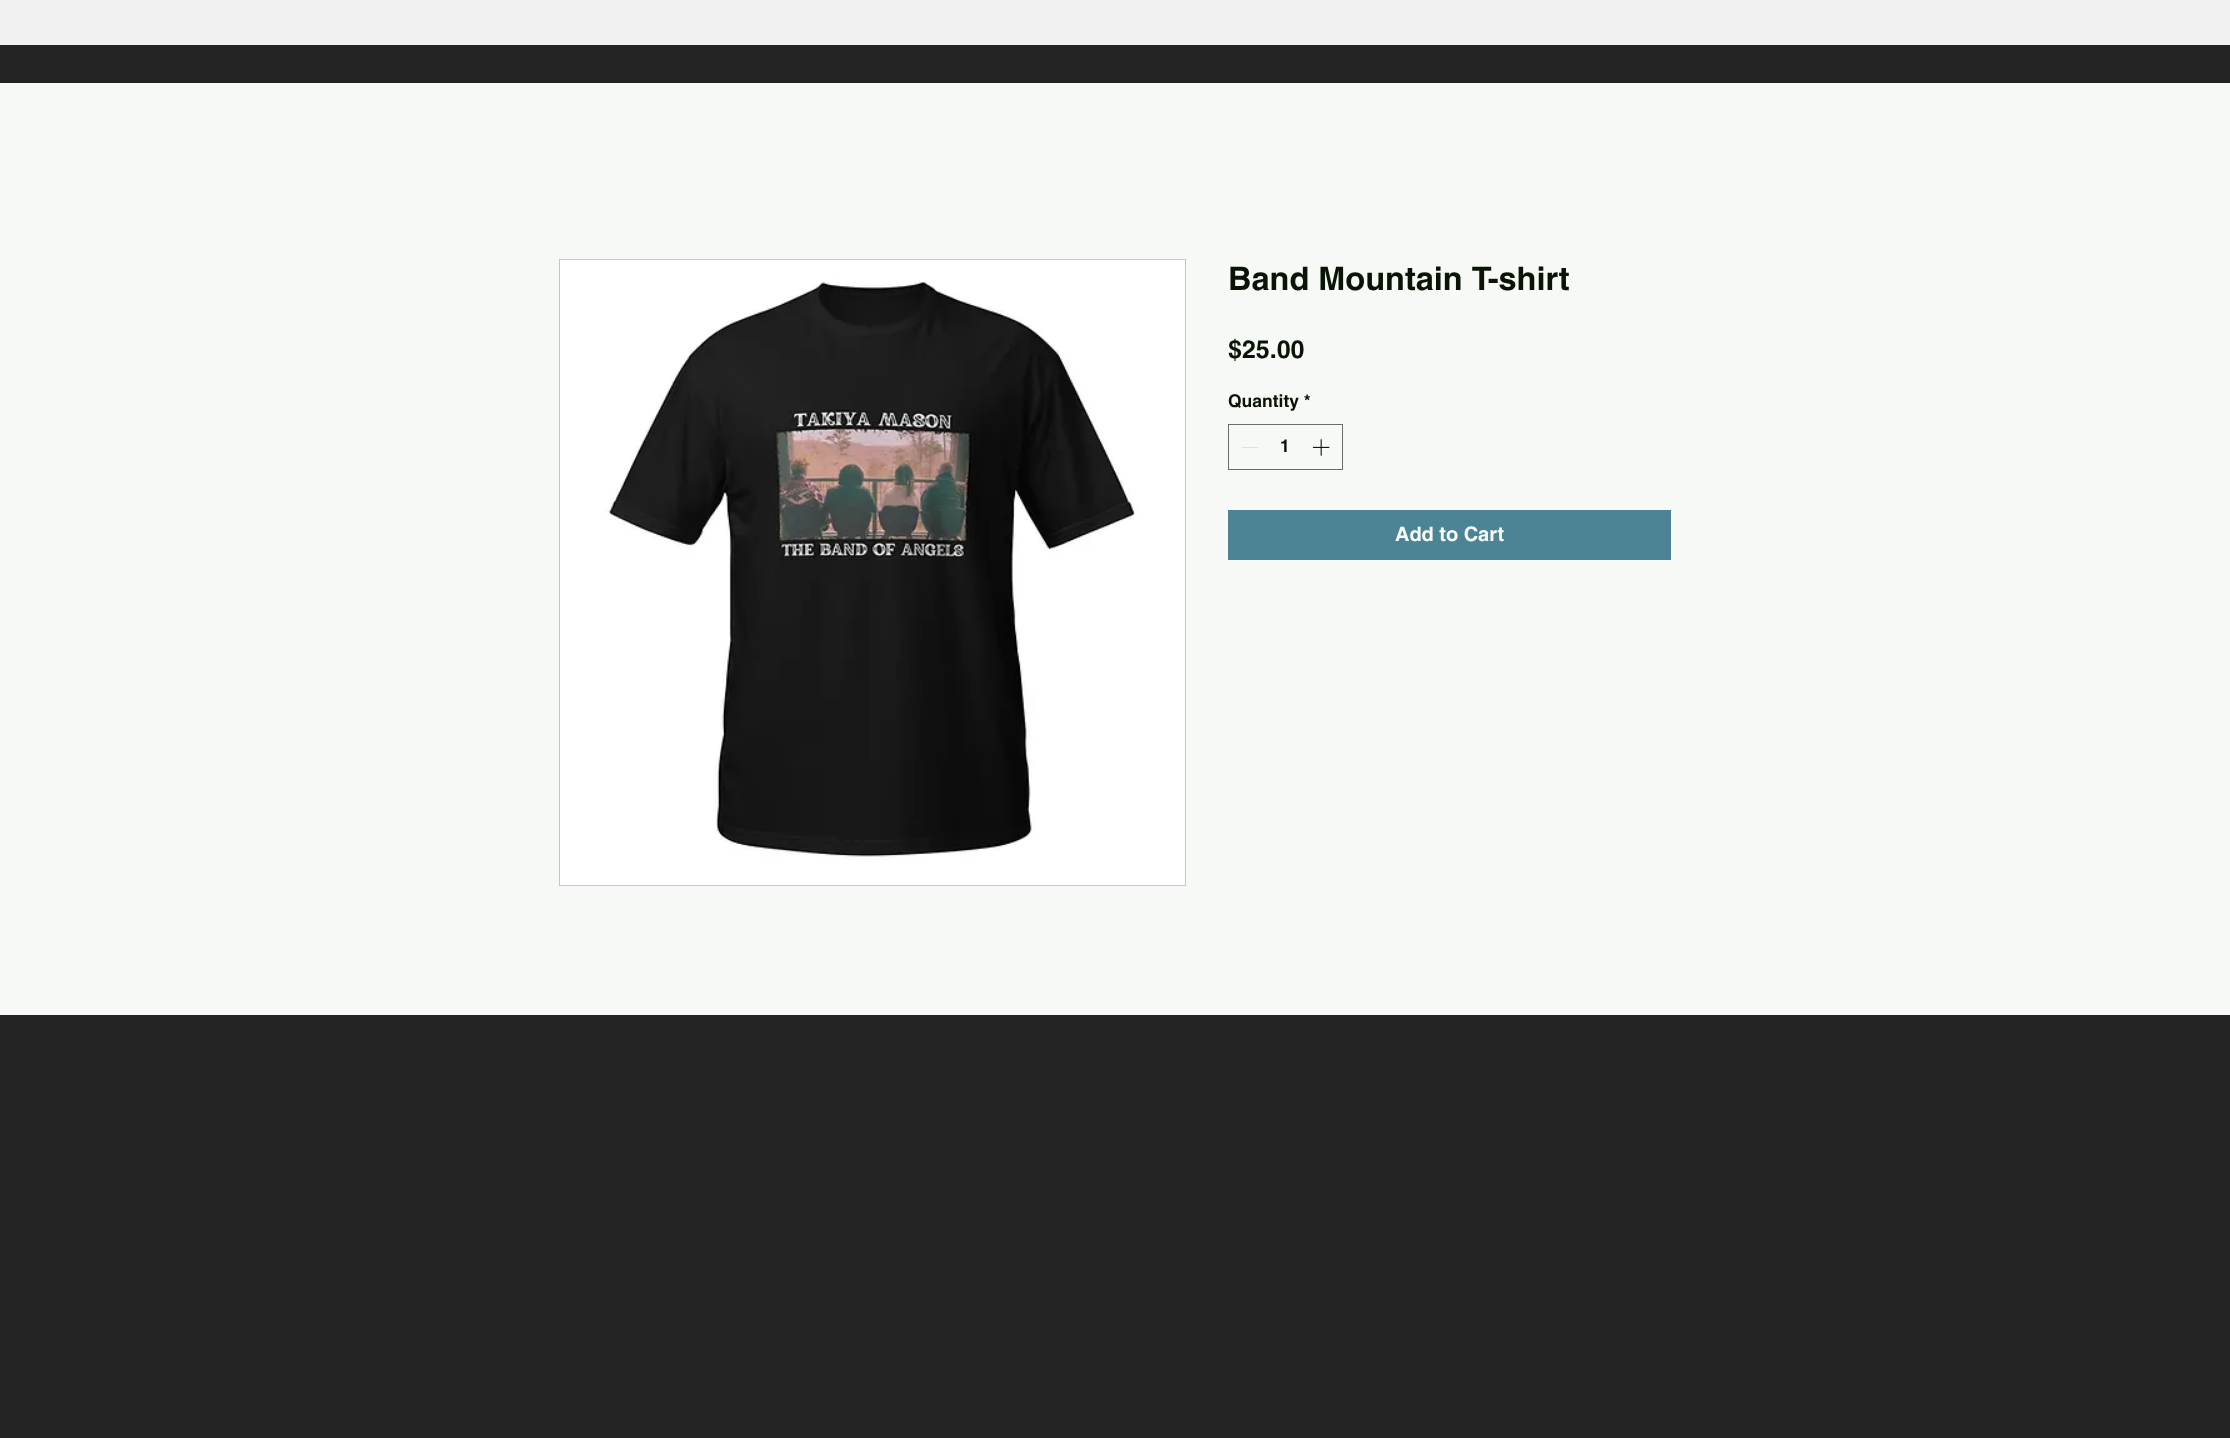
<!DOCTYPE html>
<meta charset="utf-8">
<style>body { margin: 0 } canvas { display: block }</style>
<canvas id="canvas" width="2230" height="1438"></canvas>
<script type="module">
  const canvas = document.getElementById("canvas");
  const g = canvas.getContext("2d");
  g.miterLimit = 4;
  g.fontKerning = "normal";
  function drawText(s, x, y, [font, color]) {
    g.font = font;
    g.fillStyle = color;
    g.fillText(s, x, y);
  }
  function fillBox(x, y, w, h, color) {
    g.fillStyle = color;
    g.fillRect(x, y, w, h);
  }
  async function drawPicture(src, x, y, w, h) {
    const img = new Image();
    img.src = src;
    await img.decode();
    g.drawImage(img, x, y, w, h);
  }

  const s1 = ["bold 32.5px helvetica", "#091405"];
  const s2 = ["bold 25px helvetica", "#091405"];
  const s3 = ["bold 17.5px helvetica", "#091405"];
  const s4 = ["bold 20px helvetica", "#F6F9F5"];

  fillBox(0, 0, 2230, 1438, "#232323");
  fillBox(0, 0, 2230, 45, "#F1F1F1");
  fillBox(0, 83, 2230, 932, "#F6F9F5");
  g.strokeStyle = "#C5C7C4";
  g.strokeRect(559.5, 259.5, 626, 626);
  await drawPicture("pic1.png", 560, 260, 625, 625);
  drawText("Band Mountain T-shirt", 1228, 290, s1);
  drawText("$25.00", 1228, 358, s2);
  drawText("Quantity *", 1228, 407, s3);
  g.strokeStyle = "#687065";
  g.strokeRect(1228.5, 424.5, 114, 45);
  fillBox(1242, 447, 16, 1, "#DFE0DE");
  drawText("1", 1280, 452, s3);
  await drawPicture("pic2.png", 1312, 439, 18, 17);
  fillBox(1228, 510, 443, 50, "#4D8495");
  drawText("Add to Cart", 1395, 541, s4);
</script>
